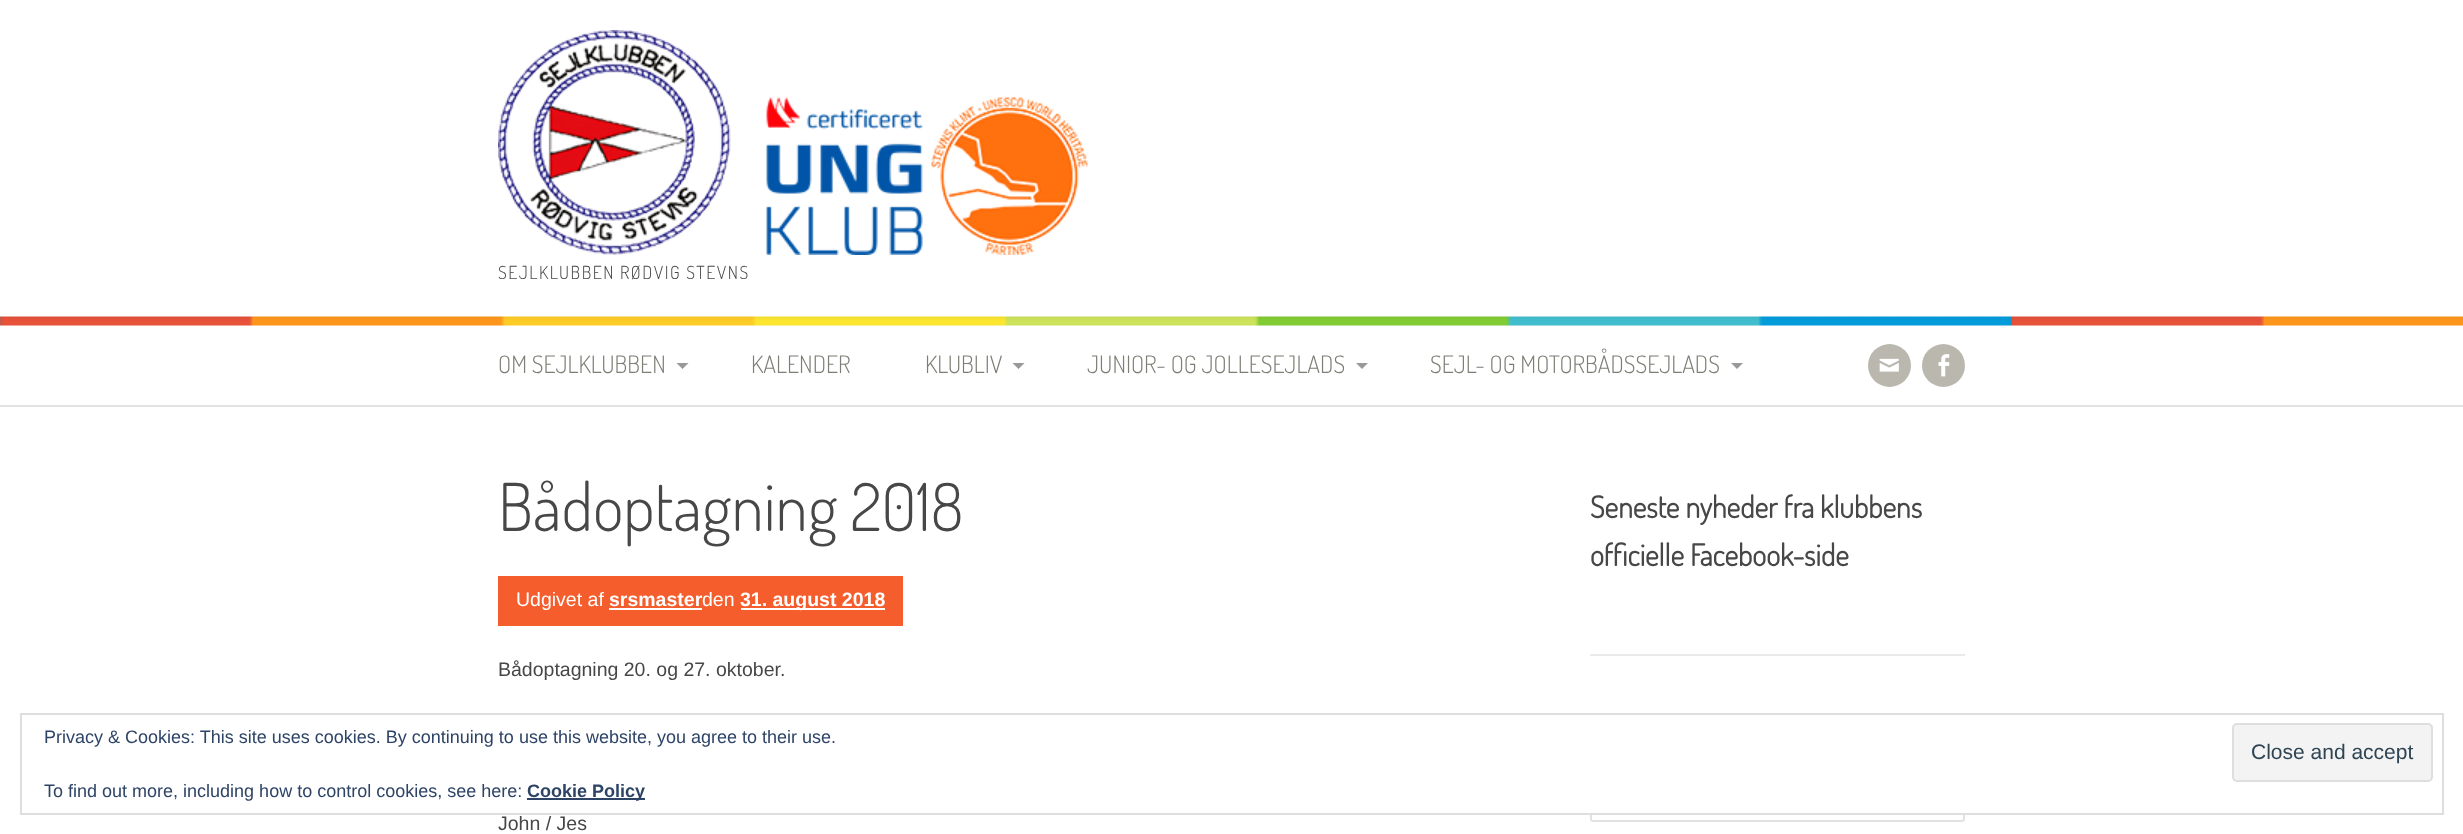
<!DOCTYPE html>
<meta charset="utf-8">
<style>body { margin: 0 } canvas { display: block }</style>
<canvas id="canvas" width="2463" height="834"></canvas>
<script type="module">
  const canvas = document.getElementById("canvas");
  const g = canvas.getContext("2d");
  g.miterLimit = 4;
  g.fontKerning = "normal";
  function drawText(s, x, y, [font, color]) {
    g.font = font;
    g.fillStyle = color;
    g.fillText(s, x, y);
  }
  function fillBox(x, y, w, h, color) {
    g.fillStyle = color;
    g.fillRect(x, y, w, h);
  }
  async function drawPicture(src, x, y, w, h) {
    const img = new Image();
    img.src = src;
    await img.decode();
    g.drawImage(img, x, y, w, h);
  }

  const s1 = ["300 18px Dosis", "#474747"];
  const s2 = ["300 24px Dosis", "#7E7E75"];
  const s3 = ["300 66px Dosis", "#474747"];
  const s4 = ["19.5px Liberation Sans", "#FFFFFF"];
  const s5 = ["bold 19.5px Liberation Sans", "#FFFFFF"];
  const s6 = ["19.5px Liberation Sans", "#474747"];
  const s7 = ["bold 30px Dosis", "#474747"];
  const s8 = ["18px Liberation Sans", "#2E4467"];
  const s9 = ["21px Liberation Sans", "#2E4453"];
  const s10 = ["bold 18px Liberation Sans", "#2E4467"];

  fillBox(0, 0, 2463, 834, "#FFFFFF");
  await drawPicture("pic1.png", 498, 30, 590, 225);
  g.letterSpacing = "1.5px";
  drawText("SEJLKLUBBEN RØDVIG STEVNS", 498, 279, s1);
  await drawPicture("pic2.png", 0, 316, 2463, 10);
  fillBox(0, 405, 2463, 2, "#E2E2E2");
  g.letterSpacing = "0px";
  drawText("OM SEJLKLUBBEN", 498, 373, s2);
  g.fillStyle = "#999999";
  g.beginPath();
  g.moveTo(676.5, 363);
  g.lineTo(688.5, 363);
  g.lineTo(682.5, 369);
  g.closePath();
  g.fill();
  drawText("KALENDER", 751, 373, s2);
  drawText("KLUBLIV", 925, 373, s2);
  g.fillStyle = "#999999";
  g.beginPath();
  g.moveTo(1012.5, 363);
  g.lineTo(1024.5, 363);
  g.lineTo(1018.5, 369);
  g.closePath();
  g.fill();
  drawText("JUNIOR- OG JOLLESEJLADS", 1087, 373, s2);
  g.fillStyle = "#999999";
  g.beginPath();
  g.moveTo(1356, 363);
  g.lineTo(1368, 363);
  g.lineTo(1362, 369);
  g.closePath();
  g.fill();
  drawText("SEJL- OG MOTORBÅDSSEJLADS", 1430, 373, s2);
  g.fillStyle = "#999999";
  g.beginPath();
  g.moveTo(1731, 363);
  g.lineTo(1743, 363);
  g.lineTo(1737, 369);
  g.closePath();
  g.fill();
  g.fillStyle = "#BAB8AE";
  g.beginPath();
  g.arc(1889.5, 365.5, 21.5, 0, Math.PI * 2);
  g.fill();
  await drawPicture("pic3.png", 1879, 358, 20, 14);
  g.beginPath();
  g.arc(1943.5, 365.5, 21.5, 0, Math.PI * 2);
  g.fill();
  await drawPicture("pic4.png", 1938, 354, 12, 23);
  drawText("Bådoptagning 2018", 498, 531, s3);
  fillBox(498, 576, 405, 50, "#F55D2D");
  drawText("Udgivet af", 516, 606, s4);
  drawText("srsmaster", 609, 606, s5);
  fillBox(609, 608, 93, 2, "#FFFFFF");
  drawText("den", 702, 606, s4);
  fillBox(741, 608, 144, 2, "#FFFFFF");
  drawText("31. august 2018", 740, 606, s5);
  drawText("Bådoptagning 20. og 27. oktober.", 498, 676, s6);
  drawText("John / Jes", 498, 830, s6);
  fillBox(1590, 654, 375, 2, "#EAEAEA");
  drawText("Seneste nyheder fra klubbens", 1590, 518, s7);
  drawText("officielle Facebook-side", 1590, 566, s7);
  g.beginPath();
  g.roundRect(1591, 765, 373, 56, 2);
  g.strokeStyle = "#E2E2E2";
  g.lineWidth = 2;
  g.stroke();
  fillBox(1590, 764, 375, 49, "#FFFFFF");
  g.strokeStyle = "#DEDEDE";
  g.strokeRect(21, 714, 2422, 100);
  drawText("Privacy & Cookies: This site uses cookies. By continuing to use this website, you agree to their use.", 44, 743, s8);
  g.fillStyle = "#F3F3F3";
  g.beginPath();
  g.roundRect(2233, 724, 199, 57, 4);
  g.fill();
  g.stroke();
  drawText("Close and accept", 2251, 759, s9);
  drawText("To find out more, including how to control cookies, see here:", 44, 797, s8);
  fillBox(527, 798, 118, 2, "#2E4467");
  drawText("Cookie Policy", 527, 797, s10);
</script>
